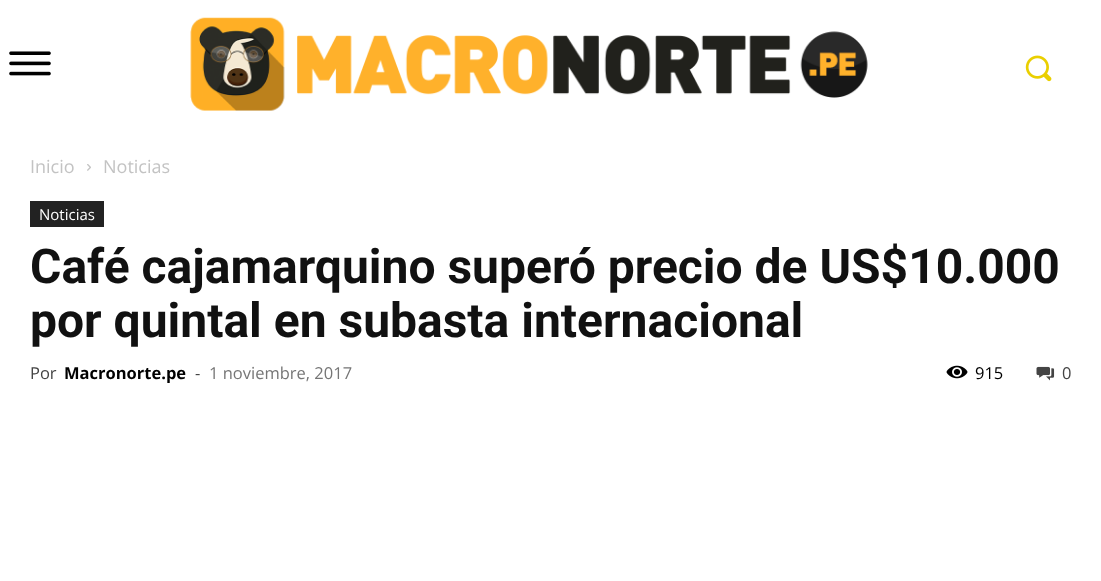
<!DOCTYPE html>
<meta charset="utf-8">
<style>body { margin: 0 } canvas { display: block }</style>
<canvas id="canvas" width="1101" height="581"></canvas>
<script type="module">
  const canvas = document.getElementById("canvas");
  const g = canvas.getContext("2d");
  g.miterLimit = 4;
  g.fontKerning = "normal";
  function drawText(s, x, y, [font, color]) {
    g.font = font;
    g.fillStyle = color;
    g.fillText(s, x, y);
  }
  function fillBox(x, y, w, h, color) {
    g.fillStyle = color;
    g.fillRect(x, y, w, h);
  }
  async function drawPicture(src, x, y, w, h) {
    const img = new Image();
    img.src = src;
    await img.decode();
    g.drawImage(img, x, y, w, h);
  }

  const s1 = ["18px Open Sans", "#C3C3C3"];
  const s2 = ["15px Open Sans", "#FFFFFF"];
  const s3 = ["bold 48px Roboto", "#111111"];
  const s4 = ["16.5px Open Sans", "#444444"];
  const s5 = ["bold 16.5px Open Sans", "#000000"];
  const s6 = ["16.5px Open Sans", "#767676"];
  const s7 = ["16.5px Open Sans", "#000000"];

  fillBox(0, 0, 1101, 581, "#FFFFFF");
  await drawPicture("pic1.png", 9, 51, 42, 25);
  await drawPicture("pic2.png", 190, 17, 678, 94);
  await drawPicture("pic3.png", 1025, 55, 27, 27);
  drawText("Inicio", 30, 173, s1);
  await drawPicture("pic4.png", 87, 164, 4, 7);
  drawText("Noticias", 103, 173, s1);
  fillBox(30, 201, 74, 26, "#222222");
  drawText("Noticias", 39, 220, s2);
  drawText("Café cajamarquino superó precio de US$10.000", 30, 283, s3);
  drawText("por quintal en subasta internacional", 30, 337, s3);
  drawText("Por", 30, 379, s4);
  drawText("Macronorte.pe", 64, 379, s5);
  drawText("-", 195, 379, s4);
  drawText("1 noviembre, 2017", 209, 379, s6);
  await drawPicture("pic5.png", 946, 365, 22, 14);
  drawText("915", 975, 379, s7);
  await drawPicture("pic6.png", 1036, 366, 19, 15);
  drawText("0", 1062, 379, s4);
</script>
